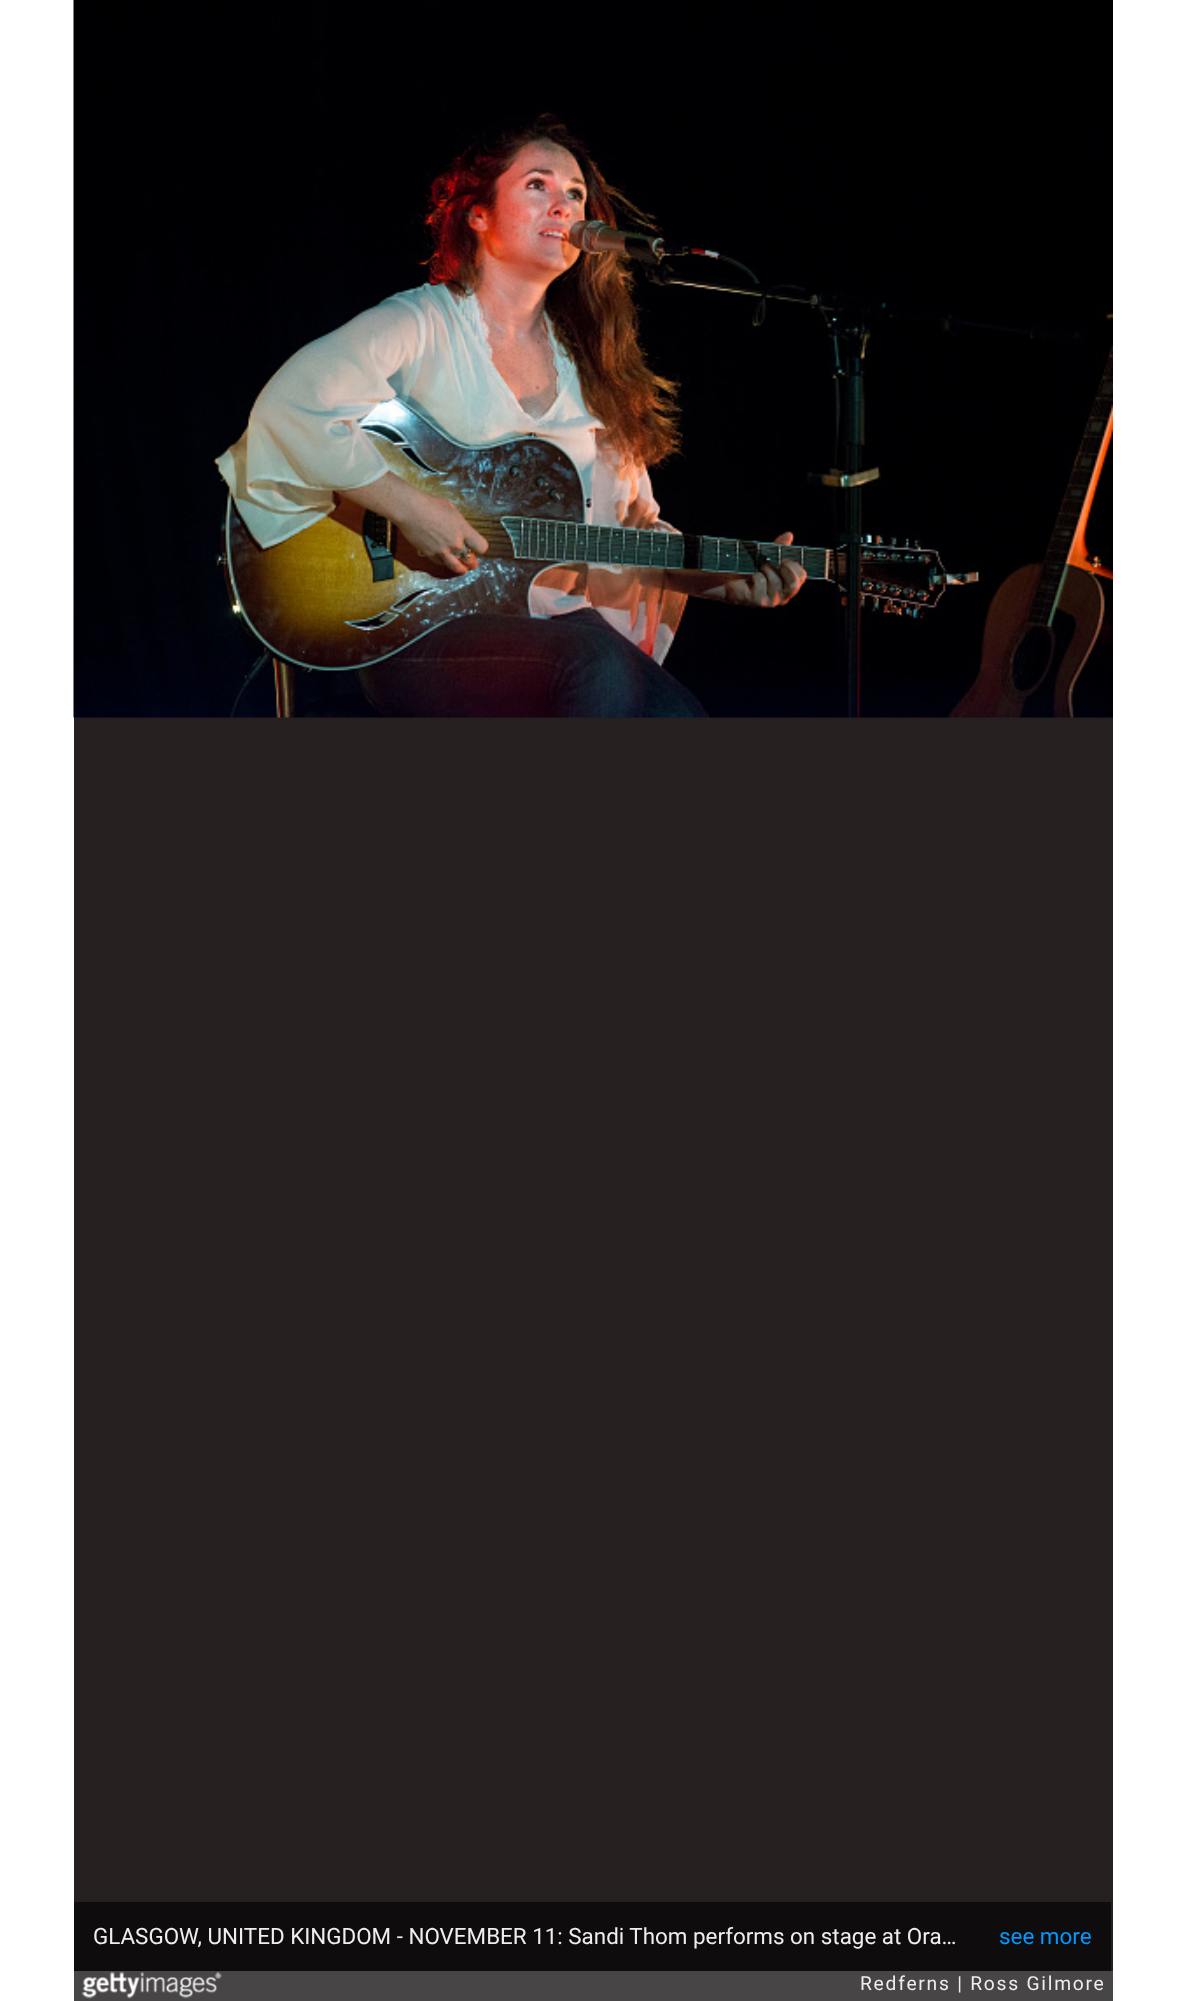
<!DOCTYPE html>
<meta charset="utf-8">
<style>body { margin: 0 } canvas { display: block }</style>
<canvas id="canvas" width="1184" height="2001"></canvas>
<script type="module">
  const canvas = document.getElementById("canvas");
  const g = canvas.getContext("2d");
  g.miterLimit = 4;
  g.fontKerning = "normal";
  function drawText(s, x, y, [font, color]) {
    g.font = font;
    g.fillStyle = color;
    g.fillText(s, x, y);
  }
  function fillBox(x, y, w, h, color) {
    g.fillStyle = color;
    g.fillRect(x, y, w, h);
  }
  async function drawPicture(src, x, y, w, h) {
    const img = new Image();
    img.src = src;
    await img.decode();
    g.drawImage(img, x, y, w, h);
  }

  const s1 = ["22.4px Roboto", "#EEEEEE"];
  const s2 = ["22.4px Roboto", "#0099FF"];
  const s3 = ["19.25px Roboto", "#EEEEEE"];

  fillBox(0, 0, 1184, 2001, "#FFFFFF");
  fillBox(74, 717, 1039, 1254, "#251F20");
  await drawPicture("pic1.png", 73, 0, 1040, 718);
  fillBox(74, 1902, 1037, 69, "#0F0C0D");
  drawText("GLASGOW, UNITED KINGDOM - NOVEMBER 11: Sandi Thom performs on stage at Ora…", 93, 1944, s1);
  drawText("see more", 999, 1944, s2);
  fillBox(74, 1971, 1039, 30, "#474545");
  await drawPicture("pic2.png", 81, 1972, 141, 27);
  g.letterSpacing = "1.75px";
  drawText("Redferns | Ross Gilmore", 860, 1990, s3);
</script>
